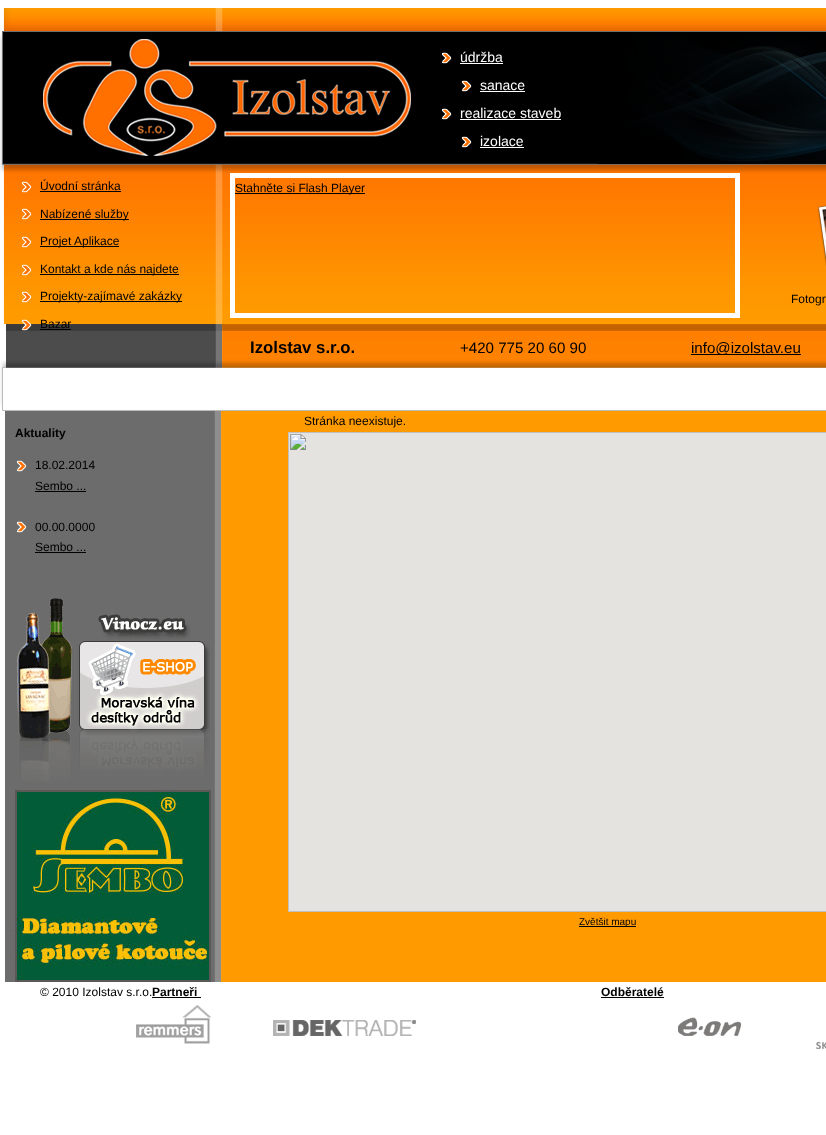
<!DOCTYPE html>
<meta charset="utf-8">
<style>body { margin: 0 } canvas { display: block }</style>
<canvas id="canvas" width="826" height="1135"></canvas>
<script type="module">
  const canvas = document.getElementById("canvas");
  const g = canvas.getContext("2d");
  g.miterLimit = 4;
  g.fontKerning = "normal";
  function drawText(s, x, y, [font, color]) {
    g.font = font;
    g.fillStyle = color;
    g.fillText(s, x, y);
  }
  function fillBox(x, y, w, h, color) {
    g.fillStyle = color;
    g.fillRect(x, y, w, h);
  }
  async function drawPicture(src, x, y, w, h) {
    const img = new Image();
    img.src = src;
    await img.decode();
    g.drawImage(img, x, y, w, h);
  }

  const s1 = ["14px Liberation Sans", "#FFFFFF"];
  const s2 = ["12px Liberation Sans", "#000000"];
  const s3 = ["bold 16.75px Liberation Sans", "#000000"];
  const s4 = ["15.1px Liberation Sans", "#000000"];
  const s5 = ["bold 12px Liberation Sans", "#000000"];
  const s6 = ["10px Liberation Sans", "#000000"];

  fillBox(0, 0, 826, 1135, "#FFFFFF");
  await drawPicture("pic1.png", 0, 8, 826, 403);
  await drawPicture("pic2.png", 441, 52, 11, 12);
  drawText("údržba", 460, 62, s1);
  fillBox(460, 63, 43, 1, "#FFFFFF");
  await drawPicture("pic2.png", 461, 80, 11, 12);
  drawText("sanace", 480, 90, s1);
  fillBox(480, 91, 45, 1, "#FFFFFF");
  await drawPicture("pic2.png", 441, 108, 11, 12);
  drawText("realizace staveb", 460, 118, s1);
  fillBox(460, 119, 101, 1, "#FFFFFF");
  await drawPicture("pic2.png", 461, 136, 11, 12);
  drawText("izolace", 480, 146, s1);
  fillBox(480, 147, 44, 1, "#FFFFFF");
  await drawPicture("pic3.png", 21, 181, 11, 12);
  drawText("Úvodní stránka", 40, 190, s2);
  fillBox(40, 191, 81, 1, "#000000");
  await drawPicture("pic4.png", 21, 208, 11, 12);
  fillBox(40, 219, 89, 1, "#000000");
  drawText("Nabízené služby", 40, 218, s2);
  await drawPicture("pic5.png", 21, 236, 11, 12);
  fillBox(40, 246, 79, 1, "#000000");
  drawText("Projet Aplikace", 40, 245, s2);
  await drawPicture("pic6.png", 21, 264, 11, 12);
  fillBox(40, 274, 139, 1, "#000000");
  drawText("Kontakt a kde nás najdete", 40, 273, s2);
  await drawPicture("pic7.png", 21, 291, 11, 12);
  fillBox(40, 301, 142, 1, "#000000");
  drawText("Projekty-zajímavé zakázky", 40, 300, s2);
  await drawPicture("pic8.png", 21, 319, 11, 12);
  drawText("Bazar", 40, 328, s2);
  fillBox(40, 329, 31, 1, "#000000");
  g.strokeStyle = "#FFFFFF";
  g.lineWidth = 5;
  g.strokeRect(232.5, 175.5, 505, 140);
  fillBox(235, 193, 130, 1, "#000000");
  drawText("Stahněte si Flash Player", 235, 192, s2);
  await drawPicture("pic9.png", 818, 205, 8, 62);
  drawText("Fotogr", 791, 303, s2);
  drawText("Izolstav s.r.o.", 250, 353, s3);
  drawText("+420 775 20 60 90", 460, 353, s4);
  fillBox(691, 354, 110, 1, "#000000");
  drawText("info@izolstav.eu", 691, 353, s4);
  await drawPicture("pic10.png", 5, 411, 821, 571);
  drawText("Aktuality", 15, 437, s5);
  await drawPicture("pic11.png", 16, 460, 11, 12);
  drawText("18.02.2014", 35, 469, s2);
  drawText("Sembo ...", 35, 490, s2);
  fillBox(35, 491, 51, 1, "#000000");
  await drawPicture("pic11.png", 16, 521, 11, 12);
  drawText("00.00.0000", 35, 531, s2);
  drawText("Sembo ...", 35, 551, s2);
  fillBox(35, 552, 51, 1, "#000000");
  await drawPicture("pic12.png", 17, 598, 193, 183);
  await drawPicture("pic13.png", 15, 790, 196, 192);
  drawText("Stránka neexistuje.", 304, 425, s2);
  await drawPicture("pic14.png", 288, 432, 538, 480);
  fillBox(579, 926, 57, 1, "#000000");
  drawText("Zvětšit mapu", 579, 925, s6);
  drawText("© 2010 Izolstav s.r.o.", 40, 996, s2);
  drawText("Partneři", 152, 996, s5);
  fillBox(152, 997, 49, 1, "#000000");
  drawText("Odběratelé", 601, 996, s5);
  fillBox(601, 997, 63, 1, "#000000");
  await drawPicture("pic15.png", 136, 1005, 75, 39);
  await drawPicture("pic16.png", 273, 1020, 143, 16);
  await drawPicture("pic17.png", 678, 1017, 63, 19);
  await drawPicture("pic18.png", 816, 1041, 10, 8);
</script>
